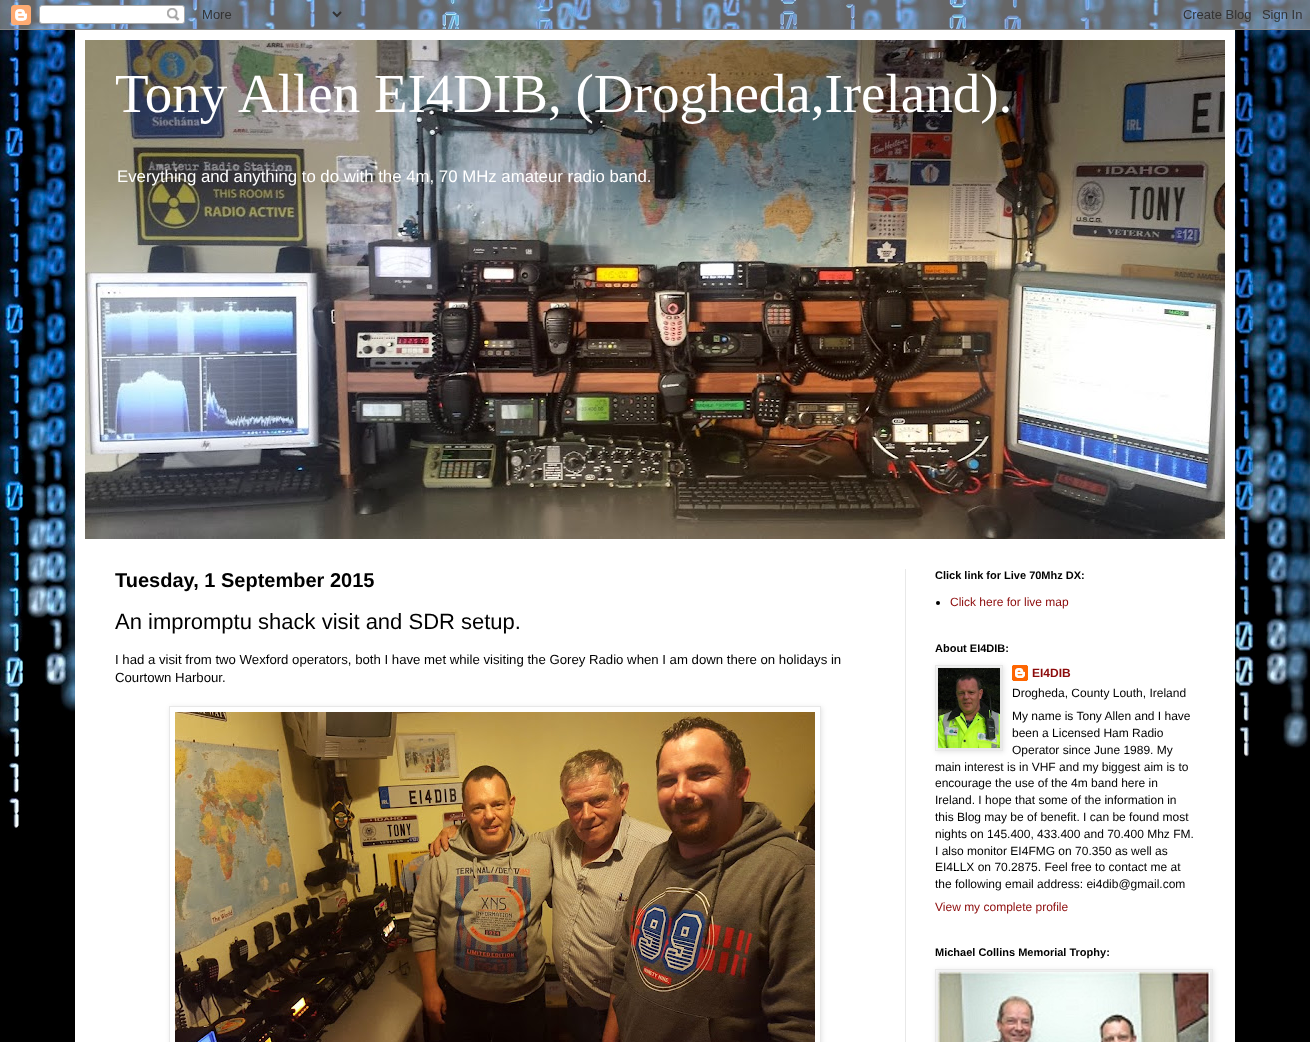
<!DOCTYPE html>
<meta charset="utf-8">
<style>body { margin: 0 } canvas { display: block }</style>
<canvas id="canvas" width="1310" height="1042"></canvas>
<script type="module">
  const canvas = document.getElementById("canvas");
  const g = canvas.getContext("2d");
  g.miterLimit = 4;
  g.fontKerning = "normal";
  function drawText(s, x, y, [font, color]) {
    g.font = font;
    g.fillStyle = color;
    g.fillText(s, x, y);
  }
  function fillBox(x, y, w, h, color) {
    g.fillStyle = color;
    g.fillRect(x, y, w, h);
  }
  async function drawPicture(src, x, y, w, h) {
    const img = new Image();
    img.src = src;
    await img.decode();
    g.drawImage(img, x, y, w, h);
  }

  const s1 = ["55px Liberation Serif", "#FFFFFF"];
  const s2 = ["16.8px Liberation Sans", "#FFFFFF"];
  const s3 = ["bold 20px Liberation Sans", "#000000"];
  const s4 = ["22px Liberation Sans", "#000000"];
  const s5 = ["13.2px Liberation Sans", "#000000"];
  const s6 = ["bold 11px Liberation Sans", "#000000"];
  const s7 = ["12px Liberation Sans", "#8C0B0B"];
  const s8 = ["bold 12px Liberation Sans", "#8C0B0B"];
  const s9 = ["12px Liberation Sans", "#000000"];

  fillBox(0, 0, 1310, 1042, "#000000");
  await drawPicture("pic1.png", 0, 0, 1310, 940);
  g.fillStyle = "rgba(0, 0, 0, 0.15)";
  g.filter = "blur(20px)";
  g.beginPath();
  g.rect(75, 30, 1160, 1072);
  g.fill();
  g.filter = "none";
  await drawPicture("pic2.png", 0, 0, 1310, 30);
  fillBox(75, 30, 1160, 1012, "#FFFFFF");
  await drawPicture("pic3.png", 85, 40, 1140, 499);
  drawText("Tony Allen EI4DIB, (Drogheda,Ireland).", 115, 112, s1);
  drawText("Everything and anything to do with the 4m, 70 MHz amateur radio band.", 117, 182, s2);
  fillBox(905, 569, 1, 473, "#E8E8E8");
  drawText("Tuesday, 1 September 2015", 115, 587, s3);
  drawText("An impromptu shack visit and SDR setup.", 115, 629, s4);
  drawText("I had a visit from two Wexford operators, both I have met while visiting the Gorey Radio when I am down there on holidays in", 115, 664, s5);
  drawText("Courtown Harbour.", 115, 682, s5);
  g.save();
  g.beginPath();
  g.moveTo(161, 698);
  g.lineTo(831, 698);
  g.lineTo(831, 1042);
  g.lineTo(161, 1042);
  g.closePath();
  g.moveTo(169, 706);
  g.lineTo(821, 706);
  g.lineTo(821, 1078);
  g.lineTo(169, 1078);
  g.closePath();
  g.clip("evenodd");
  g.fillStyle = "rgba(0, 0, 0, 0.1)";
  g.filter = "blur(2.5px)";
  g.beginPath();
  g.rect(170, 707, 652, 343);
  g.fill();
  g.filter = "none";
  g.restore();
  g.strokeStyle = "#E8E8E8";
  g.strokeRect(169.5, 706.5, 651, 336);
  await drawPicture("pic4.png", 175, 712, 640, 330);
  drawText("Click link for Live 70Mhz DX:", 935, 579, s6);
  g.beginPath();
  g.arc(938, 603, 2, 0, Math.PI * 2);
  g.fill();
  drawText("Click here for live map", 950, 606, s7);
  drawText("About EI4DIB:", 935, 652, s6);
  await drawPicture("pic6.png", 1012, 665, 16, 16);
  g.fillStyle = "rgba(0, 0, 0, 0.1)";
  g.filter = "blur(2.5px)";
  g.beginPath();
  g.rect(936, 666, 68, 86);
  g.fill();
  g.filter = "none";
  g.strokeRect(935.5, 665.5, 67, 85);
  await drawPicture("pic5.png", 938, 668, 62, 80);
  drawText("EI4DIB", 1032, 677, s8);
  drawText("Drogheda, County Louth, Ireland", 1012, 697, s9);
  drawText("My name is Tony Allen and I have", 1012, 720, s9);
  drawText("been a Licensed Ham Radio", 1012, 737, s9);
  drawText("Operator since June 1989. My", 1012, 754, s9);
  drawText("main interest is in VHF and my biggest aim is to", 935, 771, s9);
  drawText("encourage the use of the 4m band here in", 935, 787, s9);
  drawText("Ireland. I hope that some of the information in", 935, 804, s9);
  drawText("this Blog may be of benefit. I can be found most", 935, 821, s9);
  drawText("nights on 145.400, 433.400 and 70.400 Mhz FM.", 935, 838, s9);
  drawText("I also monitor EI4FMG on 70.350 as well as", 935, 855, s9);
  drawText("EI4LLX on 70.2875. Feel free to contact me at", 935, 871, s9);
  drawText("the following email address: ei4dib@gmail.com", 935, 888, s9);
  drawText("View my complete profile", 935, 911, s7);
  drawText("Michael Collins Memorial Trophy:", 935, 956, s6);
  g.fillStyle = "rgba(0, 0, 0, 0.1)";
  g.filter = "blur(2.5px)";
  g.beginPath();
  g.rect(936, 970, 278, 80);
  g.fill();
  g.filter = "none";
  g.strokeRect(935.5, 969.5, 277, 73);
  await drawPicture("pic7.png", 938, 972, 272, 70);
</script>
